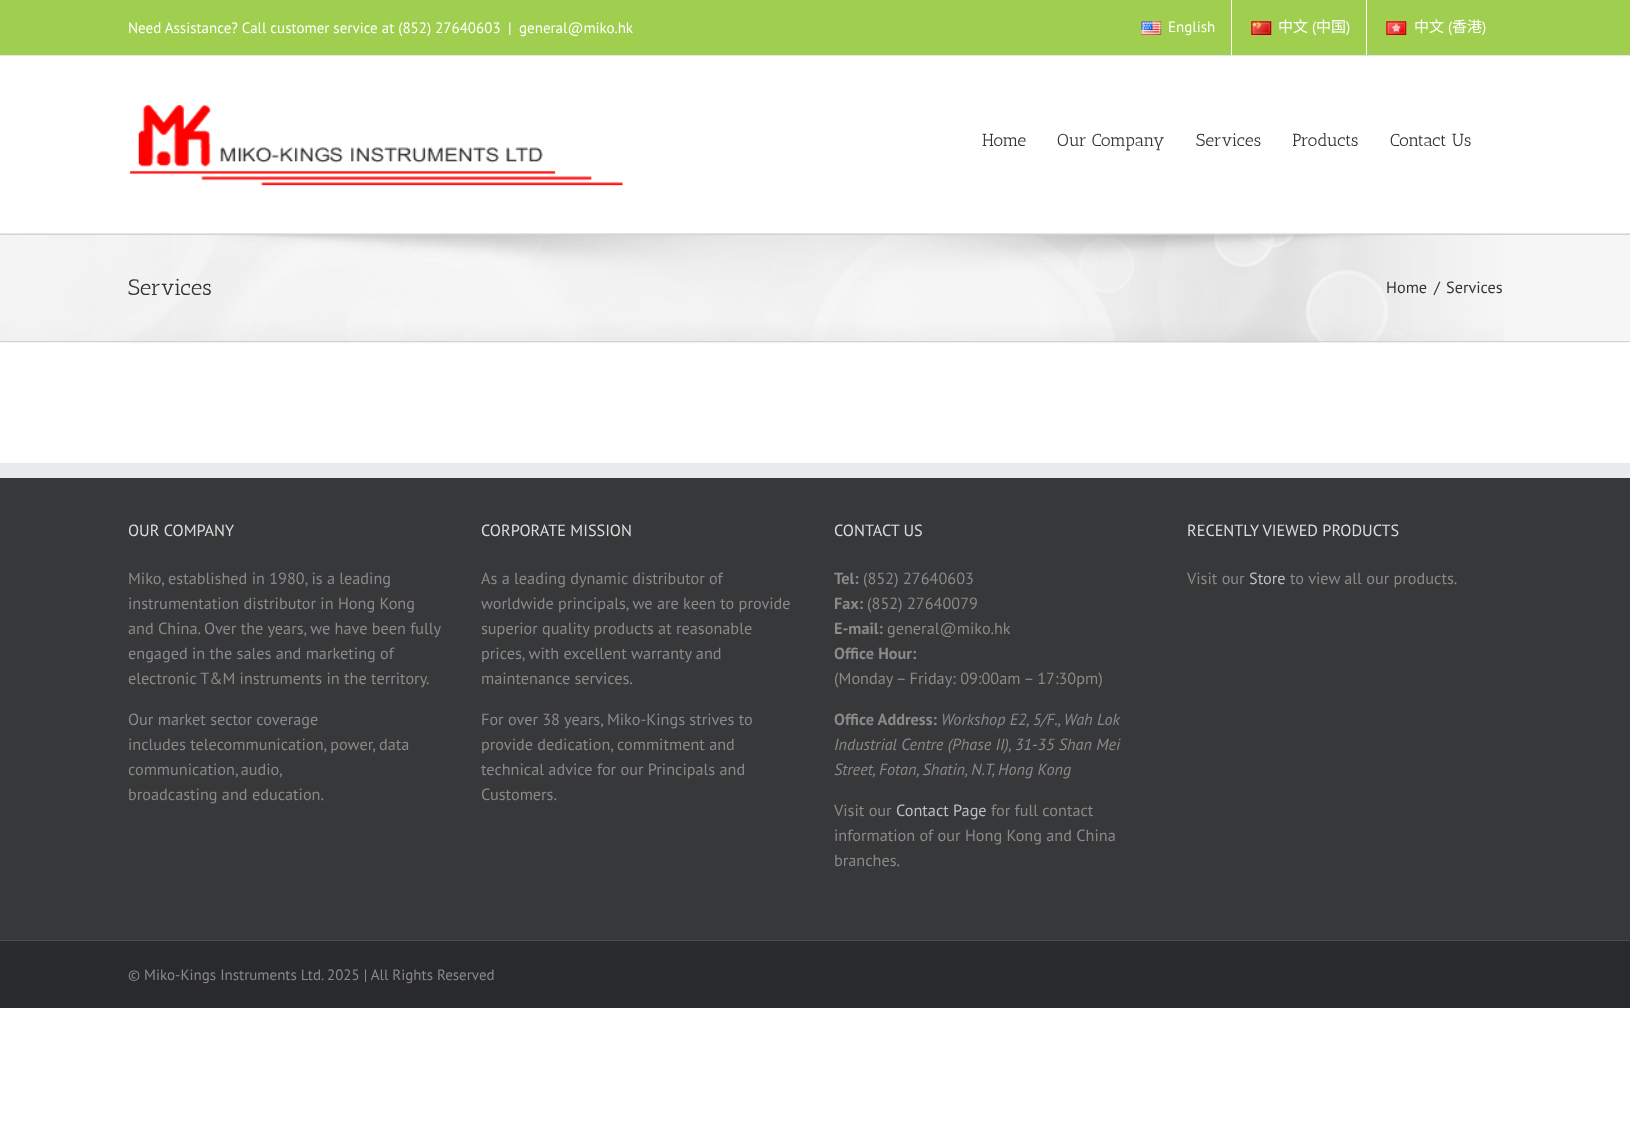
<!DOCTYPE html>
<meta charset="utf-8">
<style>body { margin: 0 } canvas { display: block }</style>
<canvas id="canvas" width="1630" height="1136"></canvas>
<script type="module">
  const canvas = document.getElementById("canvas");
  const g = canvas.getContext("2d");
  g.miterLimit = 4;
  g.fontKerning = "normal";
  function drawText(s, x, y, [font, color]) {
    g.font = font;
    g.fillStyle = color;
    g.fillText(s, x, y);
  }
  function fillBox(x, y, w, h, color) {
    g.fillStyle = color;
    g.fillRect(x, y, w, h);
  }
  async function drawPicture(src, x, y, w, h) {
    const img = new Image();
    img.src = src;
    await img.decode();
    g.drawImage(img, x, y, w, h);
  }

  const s1 = ["15px PT Sans", "#FFFFFF"];
  const s2 = ["15px Noto Sans CJK SC", "#FFFFFF"];
  const s3 = ["17.5px Antic Slab", "#333333"];
  const s4 = ["22.5px Antic Slab", "#333333"];
  const s5 = ["16.25px PT Sans", "#333333"];
  const s6 = ["16.25px PT Sans", "#DDDDDD"];
  const s7 = ["16.25px PT Sans", "#8C8989"];
  const s8 = ["bold 16.25px PT Sans", "#8C8989"];
  const s9 = ["italic 16.25px PT Sans", "#8C8989"];
  const s10 = ["16.25px PT Sans", "#BFBFBF"];
  const s11 = ["15px PT Sans", "#8C8989"];

  fillBox(0, 0, 1630, 1136, "#FFFFFF");
  fillBox(0, 0, 1630, 55, "#A0CE4E");
  fillBox(0, 55, 1630, 1, "#E5E5E5");
  drawText("Need Assistance? Call customer service at (852) 27640603", 128, 33, s1);
  drawText("|", 508, 33, s1);
  drawText("general@miko.hk", 519, 33, s1);
  await drawPicture("pic1.png", 1141, 21, 21, 14);
  drawText("English", 1168, 32, s1);
  fillBox(1231, 0, 1, 55, "#FFFFFF");
  await drawPicture("pic2.png", 1251, 21, 21, 14);
  drawText("中文", 1278, 32, s2);
  drawText("(", 1312, 32, s1);
  drawText("中国", 1316, 32, s2);
  drawText(")", 1346, 32, s1);
  fillBox(1366, 0, 1, 55, "#FFFFFF");
  await drawPicture("pic3.png", 1386, 21, 21, 14);
  drawText("中文", 1414, 32, s2);
  drawText("(", 1448, 32, s1);
  drawText("香港", 1452, 32, s2);
  drawText(")", 1482, 32, s1);
  fillBox(0, 233, 1630, 1, "#E5E5E5");
  await drawPicture("pic4.png", 129, 104, 494, 82);
  drawText("Home", 982, 146, s3);
  drawText("Our Company", 1057, 146, s3);
  drawText("Services", 1196, 146, s3);
  drawText("Products", 1292, 146, s3);
  drawText("Contact Us", 1390, 146, s3);
  fillBox(0, 235, 1630, 108, "#F6F6F6");
  await drawPicture("pic5.png", 0, 235, 1504, 108);
  fillBox(0, 234, 1630, 1, "#D2D3D4");
  fillBox(0, 341, 1630, 1, "#D2D3D4");
  drawText("Services", 128, 295, s4);
  drawText("Home", 1386, 293, s5);
  drawText("/", 1434, 293, s5);
  drawText("Services", 1446, 293, s5);
  fillBox(0, 478, 1630, 462, "#363839");
  fillBox(0, 463, 1630, 15, "#E9EAEE");
  drawText("OUR COMPANY", 128, 536, s6);
  drawText("Miko, established in 1980, is a leading", 128, 584, s7);
  drawText("instrumentation distributor in Hong Kong", 128, 609, s7);
  drawText("and China. Over the years, we have been fully", 128, 634, s7);
  drawText("engaged in the sales and marketing of", 128, 659, s7);
  drawText("electronic T&M instruments in the territory.", 128, 684, s7);
  drawText("Our market sector coverage", 128, 725, s7);
  drawText("includes telecommunication, power, data", 128, 750, s7);
  g.wordSpacing = "-1px";
  drawText("communication, audio,", 128, 775, s7);
  g.wordSpacing = "0px";
  drawText("broadcasting and education.", 128, 800, s7);
  drawText("CORPORATE MISSION", 481, 536, s6);
  drawText("As a leading dynamic distributor of", 481, 584, s7);
  drawText("worldwide principals, we are keen to provide", 481, 609, s7);
  drawText("superior quality products at reasonable", 481, 634, s7);
  drawText("prices, with excellent warranty and", 481, 659, s7);
  drawText("maintenance services.", 481, 684, s7);
  drawText("For over 38 years, Miko-Kings strives to", 481, 725, s7);
  drawText("provide dedication, commitment and", 481, 750, s7);
  drawText("technical advice for our Principals and", 481, 775, s7);
  drawText("Customers.", 481, 800, s7);
  drawText("CONTACT US", 834, 536, s6);
  drawText("Tel:", 834, 584, s8);
  drawText("(852) 27640603", 863, 584, s7);
  drawText("Fax:", 834, 609, s8);
  drawText("(852) 27640079", 867, 609, s7);
  drawText("E-mail:", 834, 634, s8);
  drawText("general@miko.hk", 887, 634, s7);
  drawText("Office Hour:", 834, 659, s8);
  drawText("(Monday – Friday: 09:00am – 17:30pm)", 834, 684, s7);
  drawText("Office Address:", 834, 725, s8);
  drawText("Workshop E2, 5/F., Wah Lok", 941, 725, s9);
  drawText("Industrial Centre (Phase II), 31-35 Shan Mei", 834, 750, s9);
  drawText("Street, Fotan, Shatin, N.T, Hong Kong", 834, 775, s9);
  drawText("Visit our", 834, 816, s7);
  drawText("Contact Page", 896, 816, s10);
  drawText("for full contact", 991, 816, s7);
  drawText("information of our Hong Kong and China", 834, 841, s7);
  drawText("branches.", 834, 866, s7);
  drawText("RECENTLY VIEWED PRODUCTS", 1187, 536, s6);
  drawText("Visit our", 1187, 584, s7);
  drawText("Store", 1249, 584, s10);
  drawText("to view all our products.", 1290, 584, s7);
  fillBox(0, 941, 1630, 67, "#282A2B");
  fillBox(0, 940, 1630, 1, "#4B4C4D");
  drawText("© Miko-Kings Instruments Ltd. 2025 | All Rights Reserved", 128, 980, s11);
</script>
